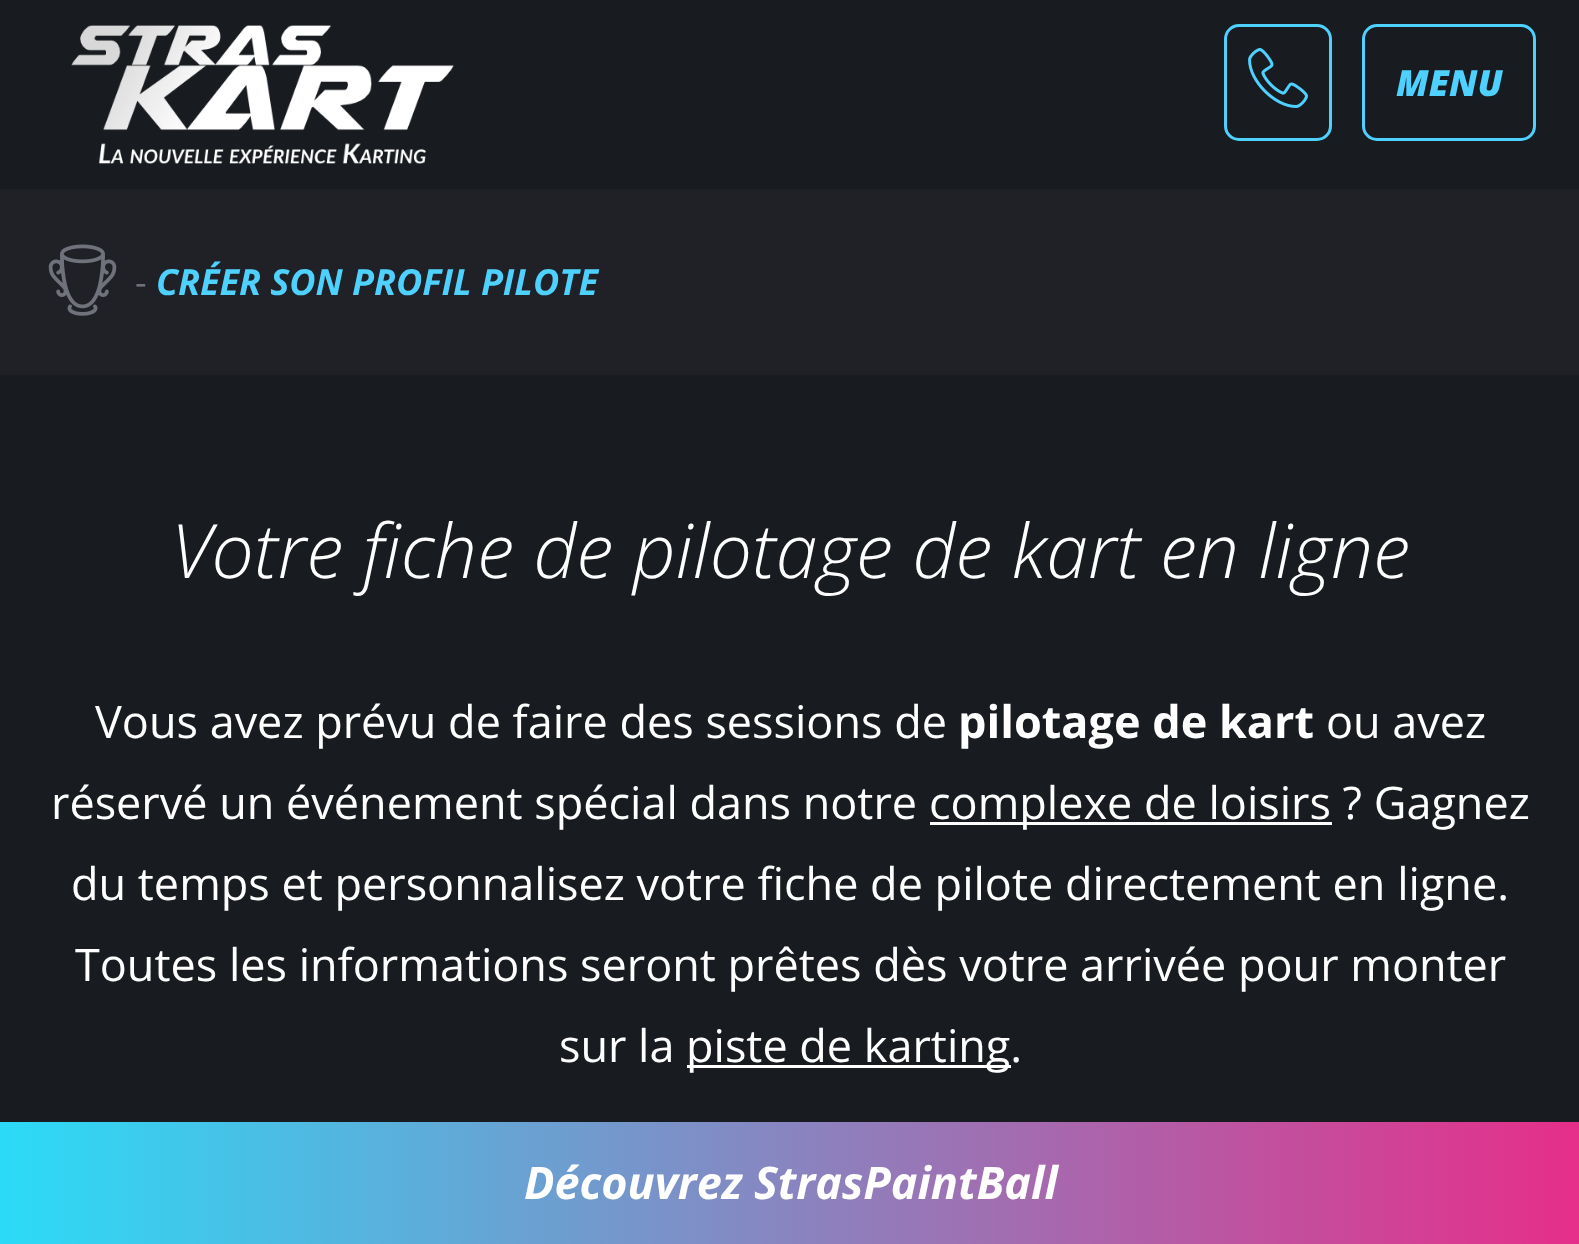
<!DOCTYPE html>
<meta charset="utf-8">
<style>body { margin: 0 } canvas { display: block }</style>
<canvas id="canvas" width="1579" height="1244"></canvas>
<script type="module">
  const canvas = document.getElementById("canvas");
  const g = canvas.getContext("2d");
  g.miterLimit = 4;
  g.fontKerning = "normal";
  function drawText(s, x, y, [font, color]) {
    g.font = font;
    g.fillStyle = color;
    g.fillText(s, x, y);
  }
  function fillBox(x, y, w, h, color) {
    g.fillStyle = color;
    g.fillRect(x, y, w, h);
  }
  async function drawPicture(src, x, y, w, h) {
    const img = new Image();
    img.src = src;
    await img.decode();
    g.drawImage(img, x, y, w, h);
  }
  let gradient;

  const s1 = ["italic 800 36px Open Sans", "#4ED1FF"];
  const s2 = ["36px Open Sans", "#6F717B"];
  const s3 = ["italic bold 36px Open Sans", "#4ED1FF"];
  const s4 = ["italic 300 75px Open Sans", "#FFFFFF"];
  const s5 = ["45px Open Sans", "#FFFFFF"];
  const s6 = ["bold 45px Open Sans", "#FFFFFF"];
  const s7 = ["italic bold 45px Open Sans", "#FFFFFF"];

  fillBox(0, 0, 1579, 1244, "#181B1F");
  await drawPicture("pic1.png", 71, 25, 383, 139);
  g.beginPath();
  g.roundRect(1225.5, 25.5, 105, 114, 13.5);
  g.strokeStyle = "#4ED1FF";
  g.lineWidth = 3;
  g.stroke();
  await drawPicture("pic2.png", 1248, 48, 60, 60);
  g.beginPath();
  g.roundRect(1363.5, 25.5, 171, 114, 13.5);
  g.stroke();
  drawText("MENU", 1396, 96, s1);
  fillBox(0, 189, 1579, 186, "#202126");
  await drawPicture("pic3.png", 48, 244, 69, 72);
  drawText("-", 135, 295, s2);
  drawText("CRÉER SON PROFIL PILOTE", 156, 295, s3);
  drawText("Votre fiche de pilotage de kart en ligne", 171, 578, s4);
  drawText("Vous avez prévu de faire des sessions de", 95, 738, s5);
  drawText("pilotage de kart", 958, 738, s6);
  drawText("ou avez", 1326, 738, s5);
  drawText("réservé un événement spécial dans notre", 51, 819, s5);
  fillBox(930, 822, 402, 3, "#FFFFFF");
  drawText("complexe de loisirs ? Gagnez", 929, 819, s5);
  drawText("du temps et personnalisez votre fiche de pilote directement en ligne.", 71, 900, s5);
  drawText("Toutes les informations seront prêtes dès votre arrivée pour monter", 75, 981, s5);
  drawText("sur la", 559, 1062, s5);
  fillBox(687, 1065, 324, 3, "#FFFFFF");
  drawText("piste de karting.", 686, 1062, s5);
  gradient = g.createLinearGradient(0, 1184, 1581, 1184);
  gradient.addColorStop(0, "#2BDBF7");
  gradient.addColorStop(1, "#E62E89");
  g.fillStyle = gradient;
  g.fillRect(0, 1122, 1579, 122);
  drawText("Découvrez StrasPaintBall", 524, 1199, s7);
</script>
